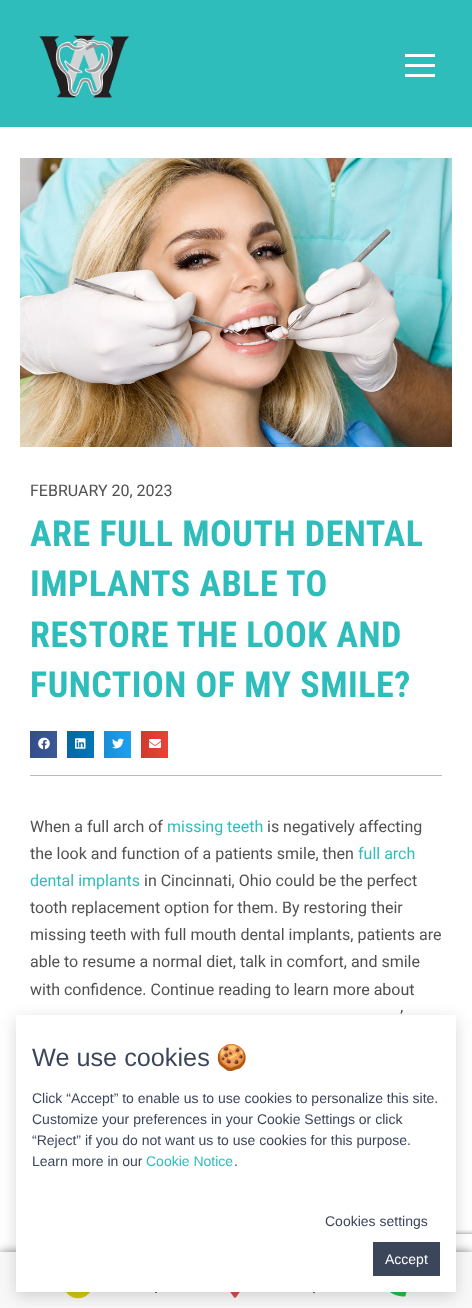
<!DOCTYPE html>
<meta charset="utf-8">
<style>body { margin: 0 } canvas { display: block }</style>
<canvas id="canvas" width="472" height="1308"></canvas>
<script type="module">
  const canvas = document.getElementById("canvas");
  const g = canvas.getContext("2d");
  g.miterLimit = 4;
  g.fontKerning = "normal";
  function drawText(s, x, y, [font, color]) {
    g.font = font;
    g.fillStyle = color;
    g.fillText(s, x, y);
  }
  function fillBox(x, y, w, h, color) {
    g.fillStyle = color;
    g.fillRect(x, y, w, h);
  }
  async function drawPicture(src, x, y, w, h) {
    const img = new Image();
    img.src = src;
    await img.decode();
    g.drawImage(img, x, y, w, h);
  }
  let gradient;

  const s1 = ["16px Roboto", "#515151"];
  const s2 = ["bold 36px Roboto Condensed", "#2FBDBB"];
  const s3 = ["16px Roboto", "#2FBDBB"];
  const s4 = ["25.25px Liberation Sans", "#3C465B"];
  const s5 = ["25.25px Noto Color Emoji", "#3C465B"];
  const s6 = ["14px Liberation Sans", "#3C465B"];
  const s7 = ["14px Liberation Sans", "#2FBDBB"];
  const s8 = ["14px Liberation Sans", "#FFFFFF"];

  fillBox(0, 0, 472, 1308, "#FFFFFF");
  fillBox(0, 0, 472, 127, "#2FBDBB");
  await drawPicture("pic1.png", 39, 35, 90, 63);
  fillBox(405, 54, 30, 3, "#FFFFFF");
  fillBox(405, 64, 30, 3, "#FFFFFF");
  fillBox(405, 74, 30, 3, "#FFFFFF");
  await drawPicture("pic2.png", 20, 158, 432, 289);
  drawText("FEBRUARY 20, 2023", 30, 496, s1);
  g.letterSpacing = "0.5px";
  drawText("ARE FULL MOUTH DENTAL", 30, 546, s2);
  drawText("IMPLANTS ABLE TO", 30, 596, s2);
  drawText("RESTORE THE LOOK AND", 30, 647, s2);
  drawText("FUNCTION OF MY SMILE?", 30, 697, s2);
  gradient = g.createLinearGradient(30, 745, 57, 745);
  gradient.addColorStop(0, "#344E86");
  gradient.addColorStop(1, "#3B5998");
  g.fillStyle = gradient;
  g.fillRect(30, 731, 27, 27);
  await drawPicture("pic3.png", 38, 737, 12, 13);
  gradient = g.createLinearGradient(67, 745, 94, 745);
  gradient.addColorStop(0, "#00699F");
  gradient.addColorStop(1, "#0077B5");
  g.fillStyle = gradient;
  g.fillRect(67, 731, 27, 27);
  await drawPicture("pic4.png", 75, 738, 11, 11);
  gradient = g.createLinearGradient(104, 745, 131, 745);
  gradient.addColorStop(0, "#1A8ED5");
  gradient.addColorStop(1, "#1DA1F2");
  g.fillStyle = gradient;
  g.fillRect(104, 731, 27, 27);
  await drawPicture("pic5.png", 112, 738, 12, 11);
  gradient = g.createLinearGradient(141, 745, 168, 745);
  gradient.addColorStop(0, "#CE3B2F");
  gradient.addColorStop(1, "#EA4335");
  g.fillStyle = gradient;
  g.fillRect(141, 731, 27, 27);
  await drawPicture("pic6.png", 149, 739, 12, 9);
  fillBox(30, 775, 412, 1, "#B8B8B8");
  g.letterSpacing = "0px";
  drawText("When a full arch of", 30, 832, s1);
  drawText("missing teeth", 167, 832, s3);
  drawText("is negatively affecting", 267, 832, s1);
  drawText("the look and function of a patients smile, then", 30, 859, s1);
  drawText("full arch", 358, 859, s3);
  drawText("dental implants", 30, 886, s3);
  drawText("in Cincinnati, Ohio could be the perfect", 144, 886, s1);
  drawText("tooth replacement option for them. By restoring their", 30, 913, s1);
  drawText("missing teeth with full mouth dental implants, patients are", 30, 940, s1);
  drawText("able to resume a normal diet, talk in comfort, and smile", 30, 967, s1);
  drawText("with confidence. Continue reading to learn more about", 30, 995, s1);
  drawText("’", 400, 1022, s1);
  g.fillStyle = "rgba(0, 0, 0, 0.5)";
  g.filter = "blur(5px)";
  g.beginPath();
  g.rect(0, 1252, 472, 56);
  g.fill();
  g.filter = "none";
  g.save();
  g.beginPath();
  g.rect(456, 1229, 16, 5);
  g.clip();
  g.fillStyle = "#808080";
  g.filter = "blur(2.5px)";
  g.beginPath();
  g.roundRect(402, 1234, 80, 60, 2);
  g.fill();
  g.filter = "none";
  g.restore();
  fillBox(0, 1252, 472, 56, "#F8F8F8");
  fillBox(155, 1292, 2, 1, "#695867");
  await drawPicture("pic7.png", 66, 1292, 24, 7);
  fillBox(313, 1292, 2, 1, "#695867");
  await drawPicture("pic8.png", 230, 1292, 10, 6);
  await drawPicture("pic9.png", 390, 1292, 17, 5);
  g.fillStyle = "rgba(0, 0, 0, 0.16)";
  g.filter = "blur(8px)";
  g.beginPath();
  g.rect(16, 1019, 440, 277);
  g.fill();
  g.filter = "none";
  fillBox(16, 1015, 440, 277, "#FFFFFF");
  drawText("We use cookies", 32, 1066, s4);
  drawText("🍪", 216, 1066, s5);
  drawText("Click “Accept” to enable us to use cookies to personalize this site.", 32, 1103, s6);
  drawText("Customize your preferences in your Cookie Settings or click", 32, 1124, s6);
  drawText("“Reject” if you do not want us to use cookies for this purpose.", 32, 1145, s6);
  drawText("Learn more in our", 32, 1166, s6);
  drawText("Cookie Notice", 146, 1166, s7);
  drawText(".", 234, 1166, s6);
  drawText("Cookies settings", 325, 1226, s6);
  fillBox(373, 1242, 67, 34, "#3C465B");
  drawText("Accept", 385, 1264, s8);
</script>
